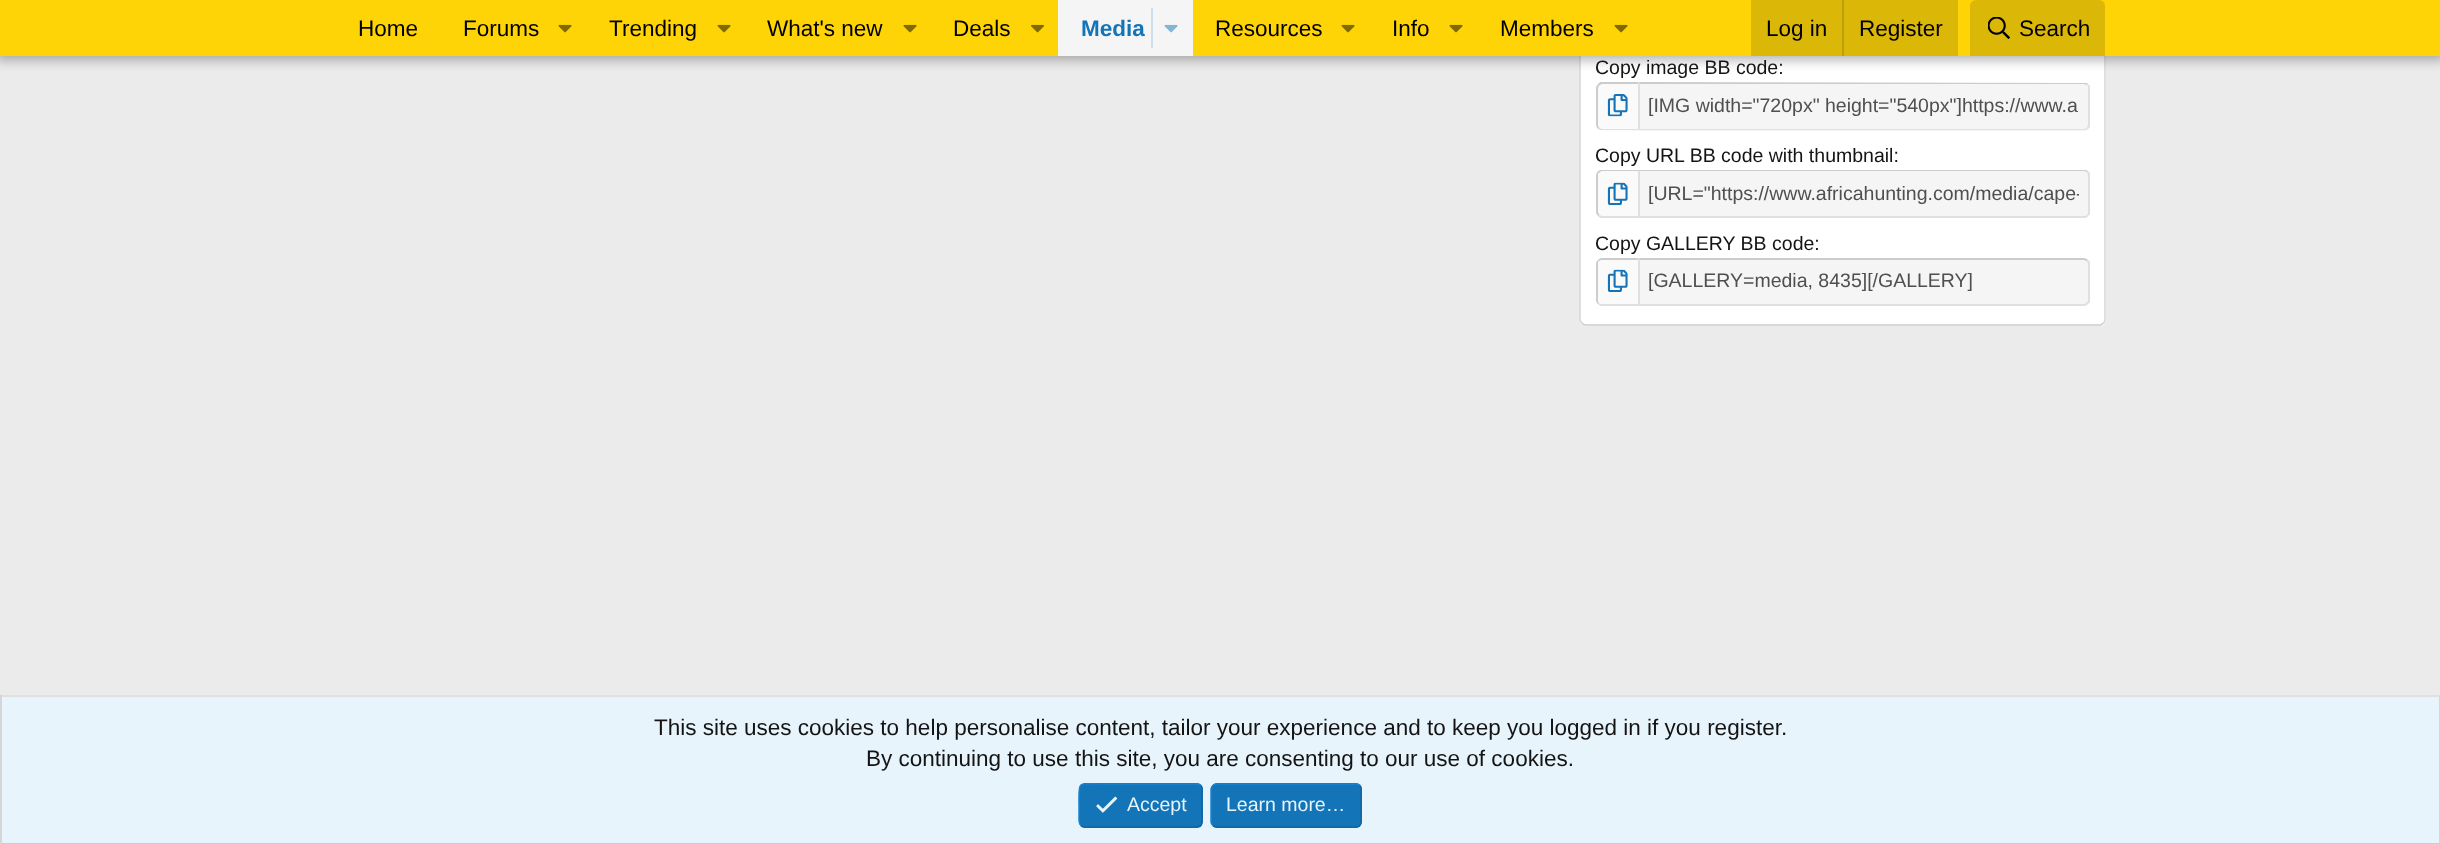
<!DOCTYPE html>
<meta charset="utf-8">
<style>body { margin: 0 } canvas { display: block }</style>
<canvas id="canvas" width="2440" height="844"></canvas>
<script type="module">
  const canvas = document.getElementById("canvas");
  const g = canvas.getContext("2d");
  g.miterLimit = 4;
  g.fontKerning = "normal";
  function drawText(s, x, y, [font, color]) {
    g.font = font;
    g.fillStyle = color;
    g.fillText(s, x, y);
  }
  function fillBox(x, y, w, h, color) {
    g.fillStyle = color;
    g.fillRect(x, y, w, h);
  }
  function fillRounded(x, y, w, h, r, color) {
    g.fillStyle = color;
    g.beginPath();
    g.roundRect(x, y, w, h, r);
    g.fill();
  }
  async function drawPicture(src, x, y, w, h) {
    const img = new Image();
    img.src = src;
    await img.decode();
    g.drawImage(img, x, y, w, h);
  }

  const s1 = ["22.5px Liberation Sans", "#000000"];
  const s2 = ["bold 22.5px Liberation Sans", "#1474B8"];
  const s3 = ["19.5px Liberation Sans", "#141414"];
  const s4 = ["19.5px Liberation Sans", "#4F4F4F"];
  const s5 = ["22.5px Liberation Sans", "#141414"];
  const s6 = ["19.5px Liberation Sans", "#E8F4FC"];

  fillBox(0, 0, 2440, 844, "#EBEBEB");
  fillRounded(1580, -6, 526, 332, 6, "#FFFFFF");
  g.beginPath();
  g.moveTo(2103.5, -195.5);
  g.bezierCurveTo(2104.5, -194.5, 2105, -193.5, 2105, -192);
  g.lineTo(2105, 319.5);
  g.bezierCurveTo(2105, 321, 2104.5, 322, 2103.5, 323);
  g.strokeStyle = "#D6D6D6";
  g.lineWidth = 1.5;
  g.stroke();
  g.beginPath();
  g.moveTo(2103.5, 323);
  g.bezierCurveTo(2102.5, 324, 2101.5, 325, 2100, 325);
  g.lineTo(1585.5, 325);
  g.bezierCurveTo(1584, 325, 1583, 324, 1582, 323);
  g.strokeStyle = "#CCCCCC";
  g.stroke();
  g.beginPath();
  g.moveTo(1582, 323);
  g.bezierCurveTo(1581, 322, 1580, 321, 1580, 319.5);
  g.lineTo(1580, -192);
  g.bezierCurveTo(1580, -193.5, 1581, -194.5, 1582, -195.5);
  g.strokeStyle = "#D6D6D6";
  g.stroke();
  g.fillStyle = "rgba(0, 0, 0, 0.3)";
  g.filter = "blur(6px)";
  g.beginPath();
  g.rect(-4, -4, 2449, 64);
  g.fill();
  g.filter = "none";
  fillBox(0, 0, 2440, 56, "#FED406");
  drawText("Home", 358, 36, s1);
  drawText("Forums", 463, 36, s1);
  await drawPicture("pic1.png", 558, 24, 14, 9);
  drawText("Trending", 609, 36, s1);
  await drawPicture("pic1.png", 717, 24, 14, 9);
  drawText("What's new", 767, 36, s1);
  await drawPicture("pic1.png", 903, 24, 14, 9);
  drawText("Deals", 953, 36, s1);
  await drawPicture("pic2.png", 1031, 24, 13, 9);
  fillBox(1058, 0, 135, 56, "#F5F5F5");
  drawText("Media", 1081, 36, s2);
  fillBox(1151, 8, 2, 40, "#CEDFEB");
  await drawPicture("pic3.png", 1164, 24, 14, 9);
  drawText("Resources", 1215, 36, s1);
  await drawPicture("pic1.png", 1341, 24, 14, 9);
  drawText("Info", 1392, 36, s1);
  await drawPicture("pic1.png", 1449, 24, 14, 9);
  drawText("Members", 1500, 36, s1);
  await drawPicture("pic1.png", 1614, 24, 14, 9);
  fillBox(1751, 0, 207, 56, "#DBB708");
  drawText("Log in", 1766, 36, s1);
  fillBox(1842, 0, 2, 56, "#BD9F0A");
  drawText("Register", 1859, 36, s1);
  g.fillStyle = "#DBB708";
  g.beginPath();
  g.roundRect(1970, 0, 135, 56, [6, 6, 0, 0]);
  g.fill();
  await drawPicture("pic4.png", 1988, 17, 22, 22);
  drawText("Search", 2019, 36, s1);
  drawText("Copy image BB code:", 1595, 74, s3);
  g.fillStyle = "#FAFAFA";
  g.beginPath();
  g.roundRect(1596, 83, 42, 48, [6, 0, 0, 6]);
  g.fill();
  g.fillStyle = "#CCCCCC";
  g.beginPath();
  g.moveTo(1602, 84);
  g.bezierCurveTo(1601, 84, 1600, 85, 1599, 86);
  g.lineTo(1598, 84);
  g.lineTo(1600, 82);
  g.lineTo(1638, 82);
  g.lineTo(1638, 84);
  g.closePath();
  g.fill();
  g.fillStyle = "#E0E0E0";
  g.beginPath();
  g.moveTo(1638, 130);
  g.lineTo(1638, 129);
  g.lineTo(1602, 129);
  g.bezierCurveTo(1601, 129, 1600, 128, 1599, 127);
  g.lineTo(1598, 129);
  g.bezierCurveTo(1599, 130, 1601, 130, 1602, 130);
  g.closePath();
  g.fill();
  g.fillStyle = "#CCCCCC";
  g.beginPath();
  g.moveTo(1596, 88);
  g.lineTo(1596, 124);
  g.bezierCurveTo(1596, 126, 1597, 128, 1598, 129);
  g.lineTo(1599, 127);
  g.bezierCurveTo(1598, 127, 1598, 125, 1598, 124);
  g.lineTo(1598, 88);
  g.lineTo(1599, 86);
  g.lineTo(1598, 84);
  g.bezierCurveTo(1597, 85, 1596, 87, 1596, 88);
  g.closePath();
  g.fill();
  await drawPicture("pic5.png", 1607, 94, 21, 23);
  g.fillStyle = "#F5F5F5";
  g.beginPath();
  g.roundRect(1638, 83, 452, 48, [0, 6, 6, 0]);
  g.fill();
  g.fillStyle = "#CCCCCC";
  g.beginPath();
  g.moveTo(1640, 84);
  g.lineTo(1638, 82);
  g.lineTo(2087, 83);
  g.lineTo(2088, 84);
  g.lineTo(2087, 85);
  g.lineTo(2084, 84);
  g.closePath();
  g.fill();
  g.fillStyle = "#E0E0E0";
  g.beginPath();
  g.moveTo(2090, 127);
  g.lineTo(2088, 129);
  g.lineTo(2087, 128);
  g.bezierCurveTo(2087, 127, 2088, 126, 2088, 124);
  g.lineTo(2088, 88);
  g.bezierCurveTo(2088, 87, 2088, 86, 2087, 85);
  g.lineTo(2088, 84);
  g.lineTo(2090, 86);
  g.closePath();
  g.fill();
  g.beginPath();
  g.moveTo(2088, 129);
  g.bezierCurveTo(2087, 130, 2085, 130, 2084, 130);
  g.lineTo(1638, 130);
  g.lineTo(1640, 128);
  g.lineTo(1640, 129);
  g.lineTo(2084, 129);
  g.lineTo(2087, 128);
  g.closePath();
  g.fill();
  g.beginPath();
  g.moveTo(1638, 82);
  g.lineTo(1638, 130);
  g.lineTo(1640, 128);
  g.lineTo(1640, 84);
  g.closePath();
  g.fill();
  drawText("[IMG width=\"720px\" height=\"540px\"]https://www.a", 1648, 112, s4);
  drawText("Copy URL BB code with thumbnail:", 1595, 162, s3);
  g.fillStyle = "#FAFAFA";
  g.beginPath();
  g.roundRect(1596, 170, 42, 48, [6, 0, 0, 6]);
  g.fill();
  g.fillStyle = "#CCCCCC";
  g.beginPath();
  g.moveTo(1602, 170);
  g.lineTo(1638, 170);
  g.lineTo(1638, 171);
  g.lineTo(1602, 171);
  g.bezierCurveTo(1601, 171, 1600, 172, 1599, 173);
  g.lineTo(1598, 171);
  g.bezierCurveTo(1599, 170, 1601, 170, 1602, 170);
  g.closePath();
  g.fill();
  g.fillStyle = "#E0E0E0";
  g.beginPath();
  g.moveTo(1638, 218);
  g.lineTo(1600, 218);
  g.lineTo(1598, 216);
  g.lineTo(1599, 214);
  g.bezierCurveTo(1600, 215, 1601, 216, 1602, 216);
  g.lineTo(1638, 216);
  g.closePath();
  g.fill();
  g.fillStyle = "#CCCCCC";
  g.beginPath();
  g.moveTo(1599, 214);
  g.lineTo(1598, 216);
  g.bezierCurveTo(1597, 215, 1596, 213, 1596, 212);
  g.lineTo(1596, 176);
  g.bezierCurveTo(1596, 174, 1597, 172, 1598, 171);
  g.lineTo(1599, 173);
  g.bezierCurveTo(1598, 173, 1598, 175, 1598, 176);
  g.lineTo(1598, 212);
  g.closePath();
  g.fill();
  await drawPicture("pic6.png", 1607, 182, 21, 23);
  g.fillStyle = "#F5F5F5";
  g.beginPath();
  g.roundRect(1638, 170, 452, 48, [0, 6, 6, 0]);
  g.fill();
  g.fillStyle = "#CCCCCC";
  g.beginPath();
  g.moveTo(1640, 171);
  g.lineTo(2084, 171);
  g.lineTo(2087, 172);
  g.lineTo(2088, 171);
  g.bezierCurveTo(2087, 170, 2085, 170, 2084, 170);
  g.lineTo(1638, 170);
  g.lineTo(1640, 172);
  g.closePath();
  g.fill();
  g.fillStyle = "#E0E0E0";
  g.beginPath();
  g.moveTo(2088, 171);
  g.lineTo(2090, 173);
  g.lineTo(2090, 214);
  g.lineTo(2088, 216);
  g.lineTo(2087, 215);
  g.bezierCurveTo(2088, 214, 2088, 213, 2088, 212);
  g.lineTo(2088, 176);
  g.bezierCurveTo(2088, 174, 2087, 173, 2087, 172);
  g.closePath();
  g.fill();
  g.beginPath();
  g.moveTo(2086, 218);
  g.lineTo(1638, 218);
  g.lineTo(1640, 216);
  g.lineTo(2084, 216);
  g.bezierCurveTo(2085, 216, 2086, 216, 2087, 215);
  g.lineTo(2088, 216);
  g.closePath();
  g.fill();
  g.beginPath();
  g.moveTo(1638, 218);
  g.lineTo(1640, 216);
  g.lineTo(1640, 172);
  g.lineTo(1638, 170);
  g.closePath();
  g.fill();
  g.save();
  g.beginPath();
  g.rect(1649, 180, 430, 27);
  g.clip();
  drawText("[URL=\"https://www.africahunting.com/media/cape-", 1648, 200, s4);
  g.restore();
  drawText("Copy GALLERY BB code:", 1595, 250, s3);
  g.fillStyle = "#FAFAFA";
  g.beginPath();
  g.roundRect(1596, 258, 42, 48, [6, 0, 0, 6]);
  g.fill();
  g.fillStyle = "#CCCCCC";
  g.beginPath();
  g.moveTo(1602, 258);
  g.bezierCurveTo(1600, 258, 1599, 259, 1598, 260);
  g.lineTo(1599, 261);
  g.bezierCurveTo(1600, 260, 1601, 260, 1602, 260);
  g.lineTo(1638, 260);
  g.lineTo(1638, 258);
  g.closePath();
  g.fill();
  g.fillStyle = "#E0E0E0";
  g.beginPath();
  g.moveTo(1638, 306);
  g.lineTo(1638, 304);
  g.lineTo(1602, 304);
  g.bezierCurveTo(1601, 304, 1600, 304, 1599, 303);
  g.lineTo(1598, 304);
  g.bezierCurveTo(1599, 305, 1600, 306, 1602, 306);
  g.closePath();
  g.fill();
  g.fillStyle = "#CCCCCC";
  g.beginPath();
  g.moveTo(1596, 264);
  g.lineTo(1596, 300);
  g.bezierCurveTo(1596, 302, 1597, 303, 1598, 304);
  g.lineTo(1599, 303);
  g.bezierCurveTo(1598, 302, 1598, 301, 1598, 300);
  g.lineTo(1598, 264);
  g.bezierCurveTo(1598, 263, 1598, 262, 1599, 261);
  g.lineTo(1598, 260);
  g.bezierCurveTo(1597, 261, 1596, 262, 1596, 264);
  g.closePath();
  g.fill();
  await drawPicture("pic7.png", 1607, 269, 21, 23);
  g.fillStyle = "#F5F5F5";
  g.beginPath();
  g.roundRect(1638, 258, 452, 48, [0, 6, 6, 0]);
  g.fill();
  g.fillStyle = "#CCCCCC";
  g.beginPath();
  g.moveTo(1638, 258);
  g.lineTo(1640, 260);
  g.lineTo(2084, 260);
  g.lineTo(2086, 261);
  g.lineTo(2088, 260);
  g.bezierCurveTo(2087, 259, 2085, 258, 2084, 258);
  g.closePath();
  g.fill();
  g.fillStyle = "#E0E0E0";
  g.beginPath();
  g.moveTo(2090, 302);
  g.lineTo(2088, 304);
  g.lineTo(2086, 303);
  g.bezierCurveTo(2087, 302, 2088, 301, 2088, 300);
  g.lineTo(2088, 264);
  g.bezierCurveTo(2088, 263, 2087, 262, 2086, 261);
  g.lineTo(2088, 260);
  g.lineTo(2090, 262);
  g.closePath();
  g.fill();
  g.beginPath();
  g.moveTo(2084, 306);
  g.bezierCurveTo(2085, 306, 2087, 305, 2088, 304);
  g.lineTo(2086, 303);
  g.lineTo(2084, 304);
  g.lineTo(1640, 304);
  g.lineTo(1638, 306);
  g.closePath();
  g.fill();
  g.beginPath();
  g.moveTo(1638, 258);
  g.lineTo(1638, 306);
  g.lineTo(1640, 304);
  g.lineTo(1640, 260);
  g.closePath();
  g.fill();
  drawText("[GALLERY=media, 8435][/GALLERY]", 1648, 287, s4);
  fillBox(2, 697, 2437, 146, "#E8F4FC");
  fillBox(0, 695, 2440, 2, "#E0E0E0");
  fillBox(2439, 695, 1, 149, "#D6D6D6");
  fillBox(0, 843, 2440, 1, "#CCCCCC");
  fillBox(0, 695, 2, 149, "#D6D6D6");
  drawText("This site uses cookies to help personalise content, tailor your experience and to keep you logged in if you register.", 654, 735, s5);
  drawText("By continuing to use this site, you are consenting to our use of cookies.", 866, 766, s5);
  fillRounded(1079, 783, 124, 45, 6, "#1474B8");
  g.beginPath();
  g.moveTo(1200.5, 785.5);
  g.bezierCurveTo(1203, 787.5, 1202, 791.5, 1202, 794.5);
  g.lineTo(1202, 805.5);
  g.bezierCurveTo(1202, 831, 1205.5, 827, 1178, 827);
  g.lineTo(1084.5, 827);
  g.bezierCurveTo(1083, 827, 1082, 826.5, 1081, 825.5);
  g.strokeStyle = "#1265A1";
  g.stroke();
  g.beginPath();
  g.moveTo(1081, 825.5);
  g.bezierCurveTo(1078.5, 823.5, 1079, 819.5, 1079, 816.5);
  g.lineTo(1079, 805.5);
  g.bezierCurveTo(1079, 780, 1076, 784, 1103, 784);
  g.lineTo(1197, 784);
  g.bezierCurveTo(1198.5, 784, 1199.5, 784.5, 1200.5, 785.5);
  g.strokeStyle = "#1782CF";
  g.stroke();
  await drawPicture("pic8.png", 1096, 796, 22, 17);
  drawText("Accept", 1127, 811, s6);
  fillRounded(1211, 783, 151, 45, 6, "#1474B8");
  g.beginPath();
  g.moveTo(1359.5, 785.5);
  g.bezierCurveTo(1360.5, 786.5, 1361, 787.5, 1361, 789);
  g.lineTo(1361, 822);
  g.bezierCurveTo(1361, 823.5, 1360.5, 824.5, 1359.5, 825.5);
  g.bezierCurveTo(1358.5, 826.5, 1357.5, 827, 1356, 827);
  g.lineTo(1216.5, 827);
  g.bezierCurveTo(1215, 827, 1214, 826.5, 1213, 825.5);
  g.strokeStyle = "#1265A1";
  g.stroke();
  g.beginPath();
  g.moveTo(1213, 825.5);
  g.bezierCurveTo(1212, 824.5, 1211, 823.5, 1211, 822);
  g.lineTo(1211, 789);
  g.bezierCurveTo(1211, 787.5, 1212, 786.5, 1213, 785.5);
  g.bezierCurveTo(1214, 784.5, 1215, 784, 1216.5, 784);
  g.lineTo(1356, 784);
  g.bezierCurveTo(1357.5, 784, 1358.5, 784.5, 1359.5, 785.5);
  g.strokeStyle = "#1782CF";
  g.stroke();
  drawText("Learn more…", 1226, 811, s6);
</script>
